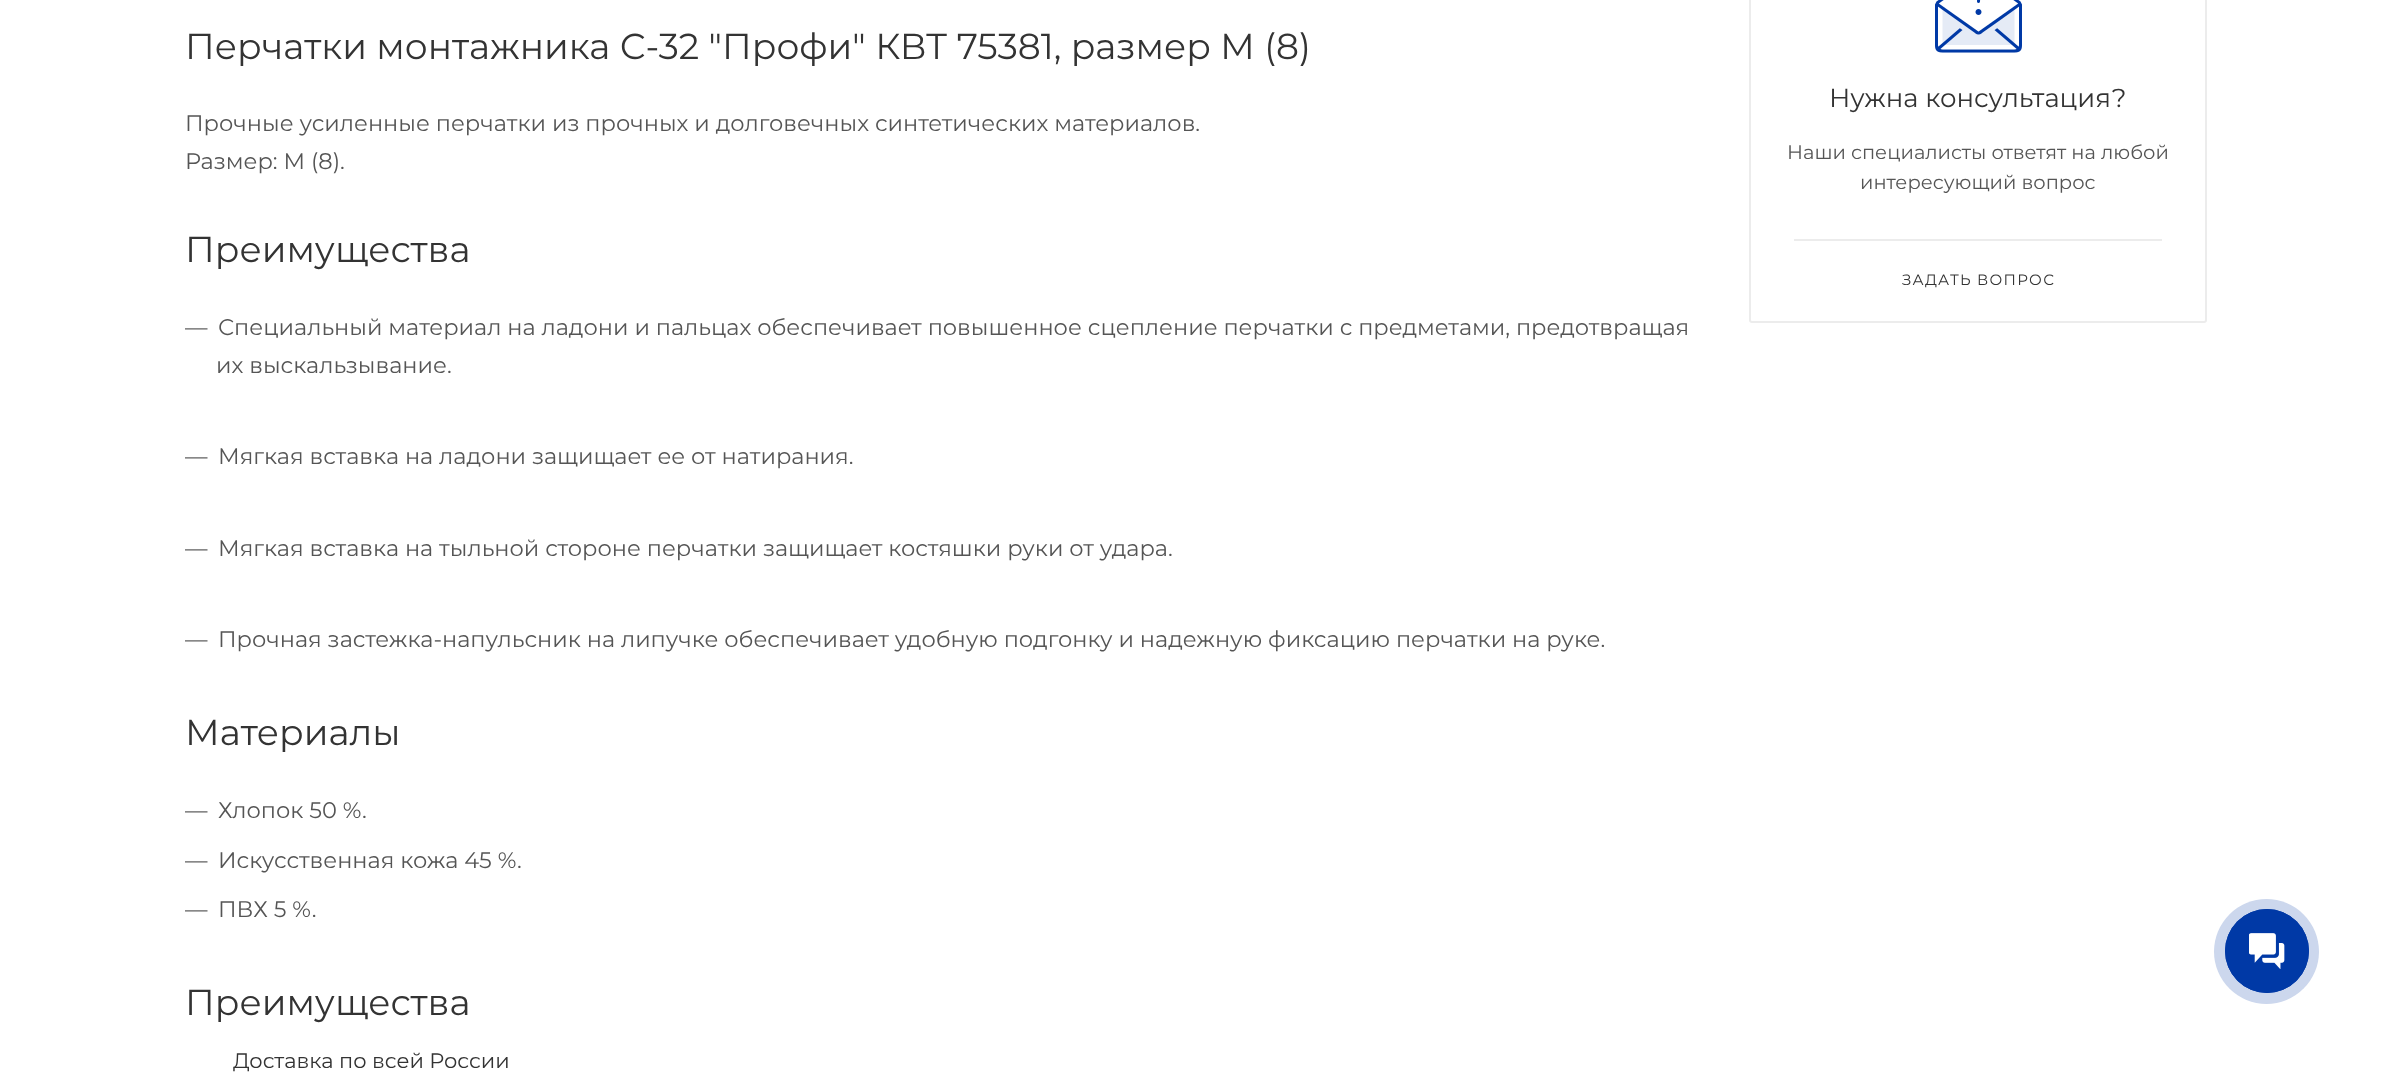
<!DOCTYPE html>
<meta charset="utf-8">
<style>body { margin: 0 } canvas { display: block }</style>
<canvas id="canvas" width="2390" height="1075"></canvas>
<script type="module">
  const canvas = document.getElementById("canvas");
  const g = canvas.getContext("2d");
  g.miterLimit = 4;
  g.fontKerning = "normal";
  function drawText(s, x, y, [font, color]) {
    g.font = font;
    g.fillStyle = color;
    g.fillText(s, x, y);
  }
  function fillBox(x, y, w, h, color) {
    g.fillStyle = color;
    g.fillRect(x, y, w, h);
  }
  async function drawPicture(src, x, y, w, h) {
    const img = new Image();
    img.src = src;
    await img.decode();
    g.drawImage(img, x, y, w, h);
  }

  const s1 = ["36px Montserrat", "#333333"];
  const s2 = ["22.5px Montserrat", "#555555"];
  const s3 = ["21px Montserrat", "#333333"];
  const s4 = ["26px Montserrat", "#333333"];
  const s5 = ["19.5px Montserrat", "#555555"];
  const s6 = ["15px Montserrat", "#333333"];

  fillBox(0, 0, 2390, 1075, "#FFFFFF");
  drawText("Перчатки монтажника С-32 \"Профи\" КВТ 75381, размер M (8)", 185, 59, s1);
  drawText("Прочные усиленные перчатки из прочных и долговечных синтетических материалов.", 185, 131, s2);
  drawText("Размер: M (8).", 185, 169, s2);
  drawText("Преимущества", 185, 262, s1);
  drawText("—", 185, 335, s2);
  drawText("Специальный материал на ладони и пальцах обеспечивает повышенное сцепление перчатки с предметами, предотвращая", 218, 335, s2);
  drawText("их выскальзывание.", 216, 373, s2);
  drawText("—", 185, 464, s2);
  drawText("Мягкая вставка на ладони защищает ее от натирания.", 218, 464, s2);
  drawText("—", 185, 556, s2);
  drawText("Мягкая вставка на тыльной стороне перчатки защищает костяшки руки от удара.", 218, 556, s2);
  drawText("—", 185, 647, s2);
  drawText("Прочная застежка-напульсник на липучке обеспечивает удобную подгонку и надежную фиксацию перчатки на руке.", 218, 647, s2);
  drawText("Материалы", 185, 745, s1);
  drawText("—", 185, 818, s2);
  drawText("Хлопок 50 %.", 218, 818, s2);
  drawText("—", 185, 868, s2);
  drawText("Искусственная кожа 45 %.", 218, 868, s2);
  drawText("—", 185, 917, s2);
  drawText("ПВХ 5 %.", 218, 917, s2);
  drawText("Преимущества", 185, 1015, s1);
  drawText("Доставка по всей России", 233, 1068, s3);
  g.beginPath();
  g.roundRect(1750, -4, 456, 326, 2);
  g.strokeStyle = "#ECECEC";
  g.lineWidth = 2;
  g.stroke();
  await drawPicture("pic1.png", 1935, 0, 87, 53);
  drawText("Нужна консультация?", 1829, 107, s4);
  drawText("Наши специалисты ответят на любой", 1787, 159, s5);
  drawText("интересующий вопрос", 1860, 189, s5);
  fillBox(1794, 239, 368, 2, "#ECECEC");
  g.letterSpacing = "1.25px";
  drawText("ЗАДАТЬ ВОПРОС", 1902, 285, s6);
  g.fillStyle = "#CCD7ED";
  g.beginPath();
  g.arc(2266.5, 951.5, 52.5, 0, Math.PI * 2);
  g.fill();
  g.beginPath();
  g.arc(2267, 951, 41.5, 0, Math.PI * 2);
  g.strokeStyle = "#0039A6";
  g.lineWidth = 1;
  g.stroke();
  g.fillStyle = "#0039A6";
  g.beginPath();
  g.arc(2267, 951, 42, 0, Math.PI * 2);
  g.fill();
  await drawPicture("pic2.png", 2249, 933, 36, 36);
</script>
